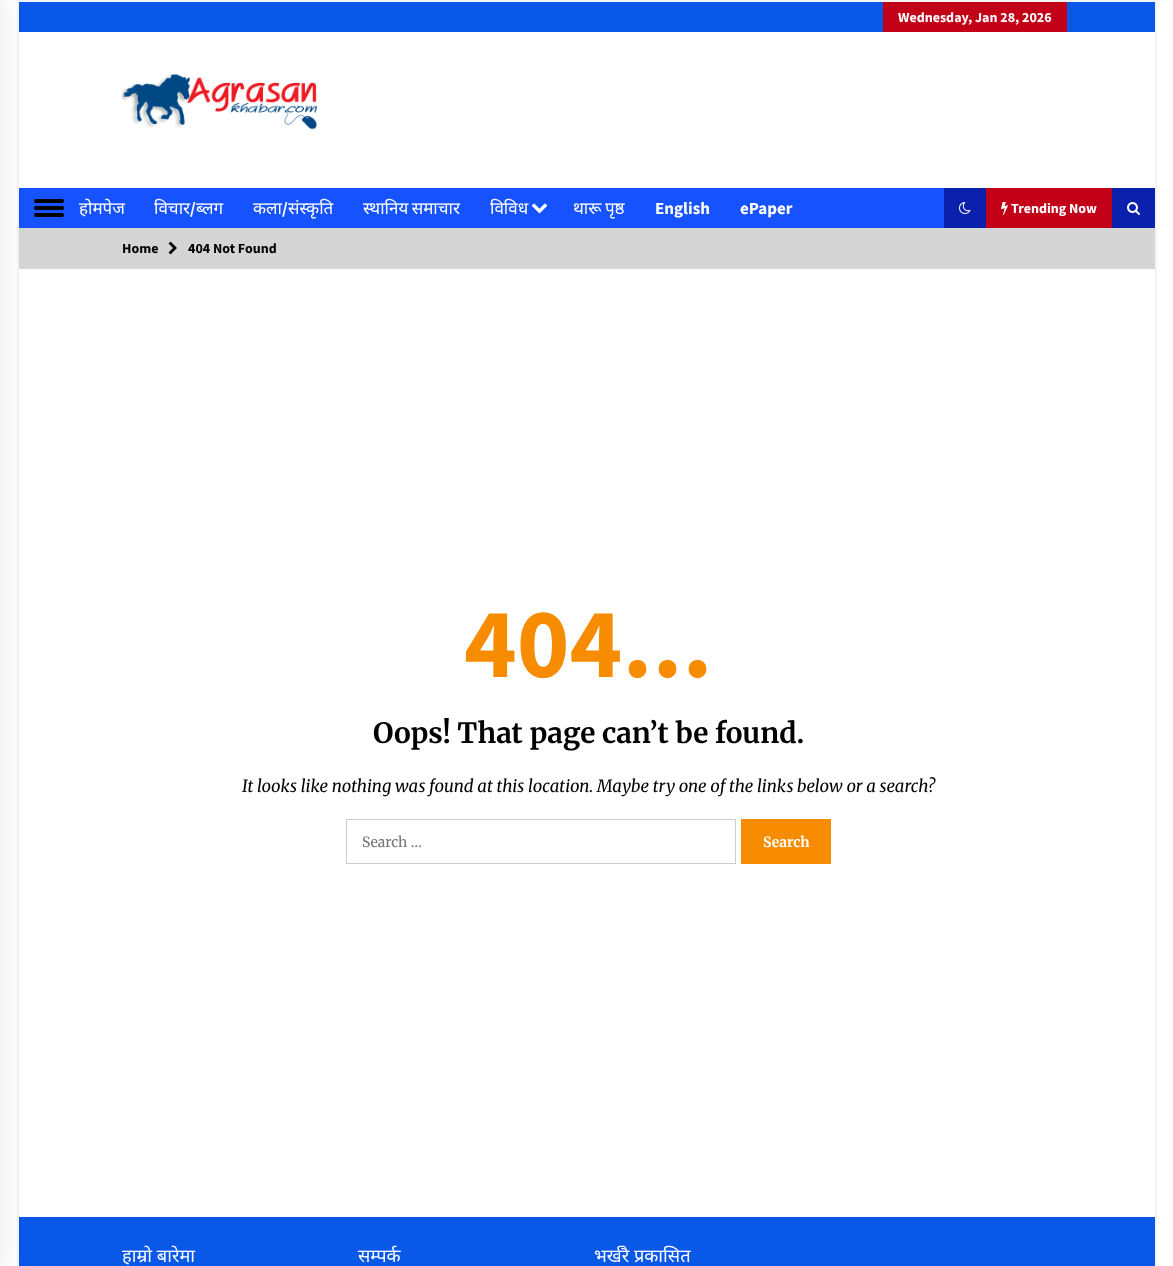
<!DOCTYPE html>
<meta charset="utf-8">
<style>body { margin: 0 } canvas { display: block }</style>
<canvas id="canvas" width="1173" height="1266"></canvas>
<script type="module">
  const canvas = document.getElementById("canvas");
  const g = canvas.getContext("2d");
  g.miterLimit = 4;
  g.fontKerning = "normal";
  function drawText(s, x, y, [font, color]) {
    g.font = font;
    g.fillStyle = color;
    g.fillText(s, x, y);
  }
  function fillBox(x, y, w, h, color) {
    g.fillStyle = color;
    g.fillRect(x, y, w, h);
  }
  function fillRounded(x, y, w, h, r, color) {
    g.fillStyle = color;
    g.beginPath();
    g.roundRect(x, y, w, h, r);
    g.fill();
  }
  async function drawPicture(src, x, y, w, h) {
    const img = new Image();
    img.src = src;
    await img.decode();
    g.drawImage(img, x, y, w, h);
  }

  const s1 = ["bold 14px Source Sans Pro", "#FFFFFF"];
  const s2 = ["17px Noto Sans", "#FFFFFF"];
  const s3 = ["bold 17px Source Sans Pro", "#FFFFFF"];
  const s4 = ["bold 14px Source Sans Pro", "#000000"];
  const s5 = ["bold 100px Source Sans Pro", "#F88C00"];
  const s6 = ["bold 28px Merriweather", "#000000"];
  const s7 = ["italic 300 16.8px Merriweather", "#000000"];
  const s8 = ["14px Merriweather", "#757575"];
  const s9 = ["bold 14px Merriweather", "#FFFFFF"];
  const s10 = ["18.25px Noto Sans", "#FFFFFF"];

  fillBox(0, 0, 1173, 1266, "#FFFFFF");
  g.strokeStyle = "#F3F3F3";
  g.lineWidth = 2;
  g.strokeRect(18, 1, 1138, 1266);
  fillBox(19, 2, 1136, 30, "#0A58E8");
  fillBox(19, 188, 925, 40, "#1653FF");
  fillRounded(34, 199, 30, 4, 2, "#000000");
  fillRounded(34, 213, 30, 4, 2, "#000000");
  fillRounded(34, 206, 30, 4, 2, "#000000");
  fillBox(19, 228, 1136, 41, "#D5D5D5");
  fillBox(19, 1217, 1136, 49, "#0A58E8");
  g.fillStyle = "rgba(0, 0, 0, 0.1)";
  g.filter = "blur(12.5px)";
  g.beginPath();
  g.rect(-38, 0, 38, 1266);
  g.fill();
  g.filter = "none";
  fillBox(883, 2, 184, 30, "#C20017");
  drawText("Wednesday, Jan 28, 2026", 898, 22, s1);
  await drawPicture("pic1.png", 122, 74, 195, 56);
  drawText("होमपेज", 79, 214, s2);
  drawText("विचार", 154, 214, s2);
  drawText("/", 190, 214, s3);
  drawText("ब्लग", 196, 214, s2);
  drawText("/", 282, 214, s3);
  drawText("संस्कृति", 288, 214, s2);
  drawText("कला", 253, 214, s2);
  g.wordSpacing = "-1px";
  drawText("स्थानिय समाचार", 363, 214, s2);
  g.wordSpacing = "0px";
  drawText("विविध", 490, 214, s2);
  await drawPicture("pic2.png", 531, 203, 17, 11);
  g.wordSpacing = "-1px";
  drawText("थारू पृष्ठ", 573, 214, s2);
  g.wordSpacing = "0px";
  drawText("English", 655, 214, s3);
  drawText("ePaper", 740, 214, s3);
  fillBox(944, 188, 42, 40, "#0C20AE");
  await drawPicture("pic3.png", 959, 202, 12, 12);
  fillBox(986, 188, 126, 40, "#C20017");
  await drawPicture("pic4.png", 1001, 202, 7, 13);
  drawText("Trending Now", 1011, 213, s1);
  fillBox(1112, 188, 43, 40, "#0C20AE");
  await drawPicture("pic5.png", 1127, 202, 13, 13);
  drawText("Home", 122, 253, s4);
  await drawPicture("pic6.png", 168, 241, 9, 14);
  drawText("404 Not Found", 188, 253, s4);
  drawText("404...", 464, 677, s5);
  drawText("Oops! That page can’t be found.", 373, 743, s6);
  drawText("It looks like nothing was found at this location. Maybe try one of the links below or a search?", 242, 792, s7);
  g.strokeStyle = "#CCCCCC";
  g.lineWidth = 1;
  g.strokeRect(346.5, 819.5, 389, 44);
  drawText("Search …", 362, 847, s8);
  fillBox(741, 819, 90, 45, "#F88C00");
  drawText("Search", 763, 847, s9);
  drawText("हाम्रो बारेमा", 122, 1262, s10);
  drawText("सम्पर्क", 358, 1262, s10);
  drawText("भर्खरै प्रकासित", 594, 1262, s10);
</script>
